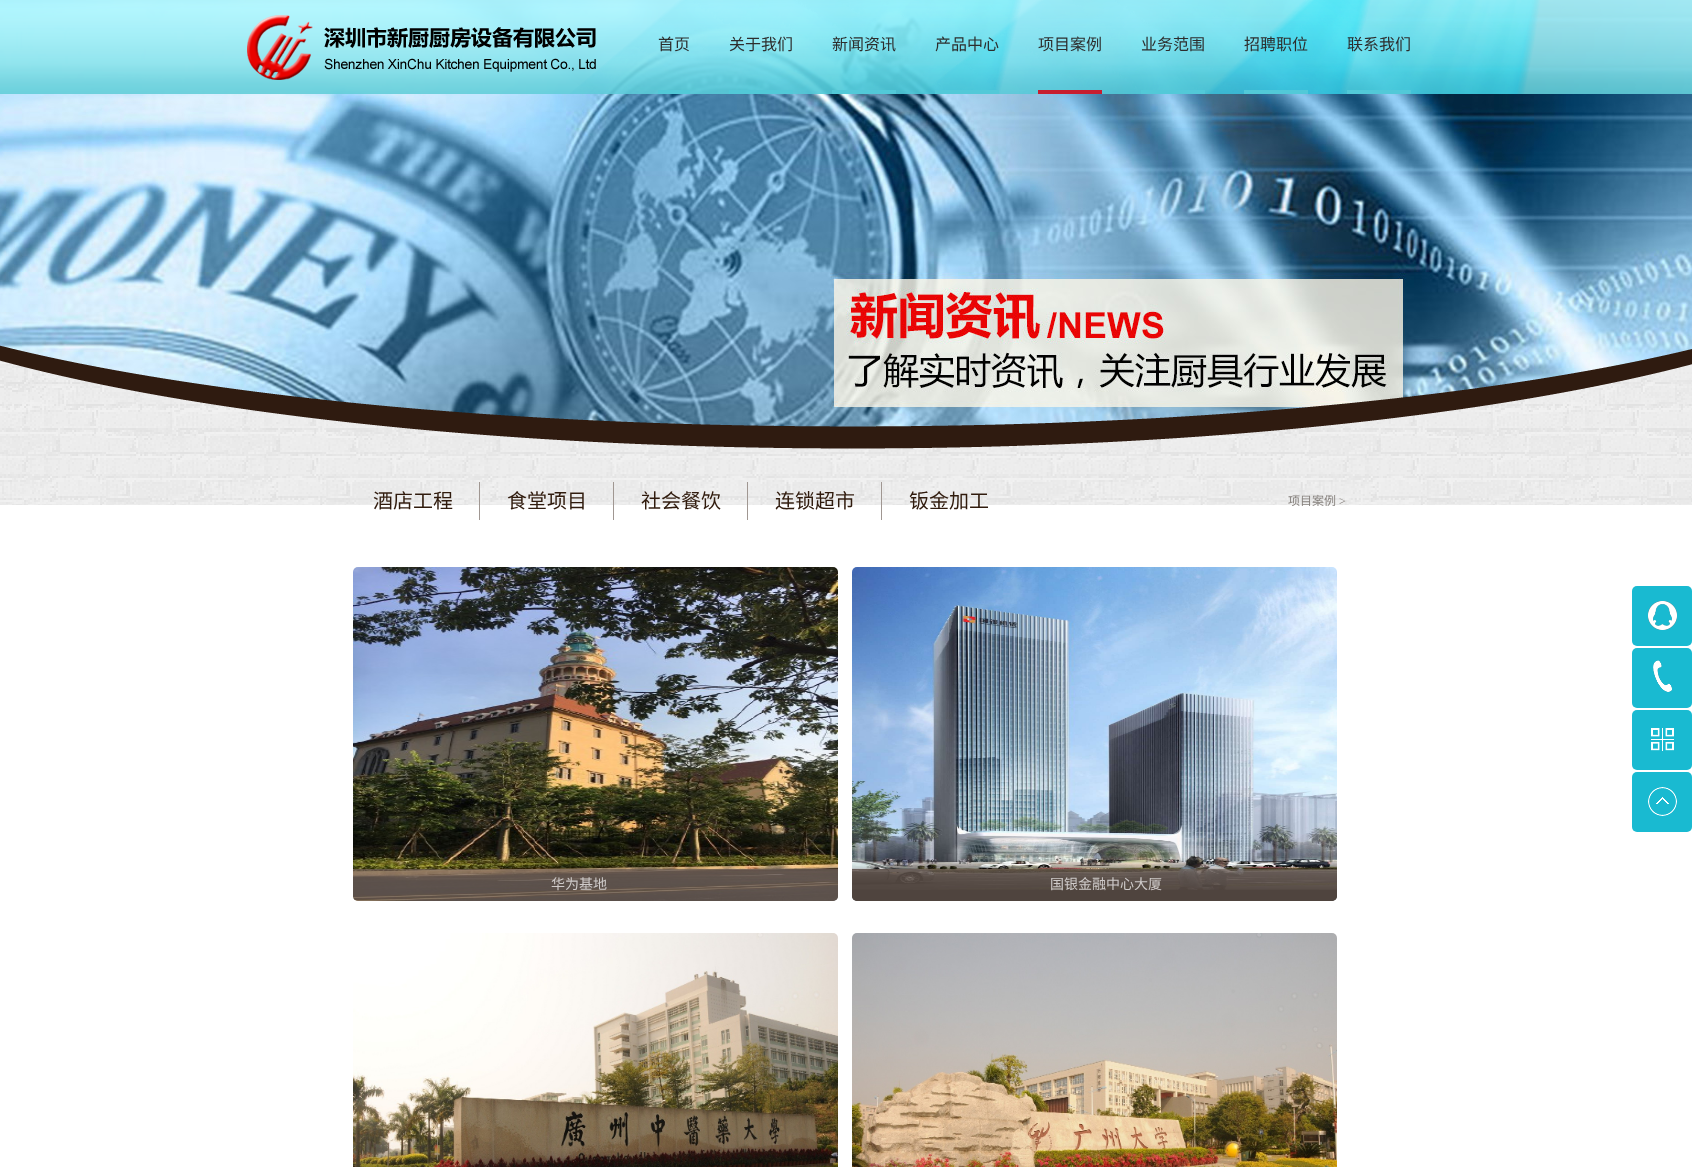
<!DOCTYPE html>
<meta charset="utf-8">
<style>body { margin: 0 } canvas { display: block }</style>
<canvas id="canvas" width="1692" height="1167"></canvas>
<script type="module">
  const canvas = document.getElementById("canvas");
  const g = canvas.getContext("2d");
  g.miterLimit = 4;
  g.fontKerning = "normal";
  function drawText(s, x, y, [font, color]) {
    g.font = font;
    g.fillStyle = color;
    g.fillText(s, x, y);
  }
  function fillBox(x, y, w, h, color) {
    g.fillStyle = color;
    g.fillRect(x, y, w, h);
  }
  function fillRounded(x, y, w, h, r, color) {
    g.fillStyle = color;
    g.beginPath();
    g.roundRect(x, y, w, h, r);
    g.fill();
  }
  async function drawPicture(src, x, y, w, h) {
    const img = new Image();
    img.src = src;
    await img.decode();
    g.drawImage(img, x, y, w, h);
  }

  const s1 = ["16px Noto Sans CJK SC", "#2D2D2D"];
  const s2 = ["20px Noto Sans CJK SC", "#301B0D"];
  const s3 = ["12px Noto Sans CJK SC", "#87827E"];
  const s4 = ["12px Liberation Serif", "#87827E"];
  const s5 = ["14px Noto Sans CJK SC", "#CFCBCA"];

  fillBox(0, 0, 1692, 1167, "#FFFFFF");
  await drawPicture("pic1.png", 0, 0, 1692, 427);
  await drawPicture("pic2.png", 0, 0, 1692, 94);
  await drawPicture("pic3.png", 247, 15, 349, 65);
  fillBox(658, 90, 32, 4, "#52C9D8");
  drawText("首页", 658, 50, s1);
  fillBox(729, 90, 64, 4, "#52C9D8");
  drawText("关于我们", 729, 50, s1);
  fillBox(832, 90, 64, 4, "#52C9D8");
  drawText("新闻资讯", 832, 50, s1);
  fillBox(935, 90, 64, 4, "#52C9D8");
  drawText("产品中心", 935, 50, s1);
  fillBox(1038, 90, 64, 4, "#C71E2F");
  drawText("项目案例", 1038, 50, s1);
  fillBox(1141, 90, 64, 4, "#52C9D8");
  drawText("业务范围", 1141, 50, s1);
  fillBox(1244, 90, 64, 4, "#52C9D8");
  drawText("招聘职位", 1244, 50, s1);
  fillBox(1347, 90, 64, 4, "#52C9D8");
  drawText("联系我们", 1347, 50, s1);
  await drawPicture("pic4.png", 0, 345, 1692, 160);
  fillBox(479, 482, 1, 38, "#A09792");
  drawText("酒店工程", 373, 508, s2);
  fillBox(613, 482, 1, 38, "#A09792");
  drawText("食堂项目", 507, 508, s2);
  fillBox(747, 482, 1, 38, "#A09792");
  drawText("社会餐饮", 641, 508, s2);
  fillBox(881, 482, 1, 38, "#A09792");
  drawText("连锁超市", 775, 508, s2);
  drawText("钣金加工", 909, 508, s2);
  drawText("项目案例", 1288, 505, s3);
  drawText(">", 1339, 505, s4);
  await drawPicture("pic5.png", 353, 567, 485, 334);
  g.fillStyle = "rgba(112, 97, 89, 0.7)";
  g.beginPath();
  g.roundRect(353, 869, 485, 32, [0, 0, 5, 5]);
  g.fill();
  drawText("华为基地", 551, 889, s5);
  await drawPicture("pic6.png", 852, 567, 485, 334);
  g.fillStyle = "rgba(112, 97, 89, 0.7)";
  g.beginPath();
  g.roundRect(852, 869, 485, 32, [0, 0, 5, 5]);
  g.fill();
  drawText("国银金融中心大厦", 1050, 889, s5);
  await drawPicture("pic7.png", 353, 933, 485, 234);
  await drawPicture("pic8.png", 852, 933, 485, 234);
  fillRounded(1632, 586, 60, 60, 5, "#19BAD1");
  await drawPicture("pic9.png", 1648, 601, 29, 29);
  fillRounded(1632, 648, 60, 60, 5, "#19BAD1");
  await drawPicture("pic10.png", 1653, 660, 19, 32);
  fillRounded(1632, 710, 60, 60, 5, "#19BAD1");
  await drawPicture("pic11.png", 1651, 728, 23, 23);
  fillRounded(1632, 772, 60, 60, 5, "#19BAD1");
  await drawPicture("pic12.png", 1648, 787, 29, 29);
</script>
